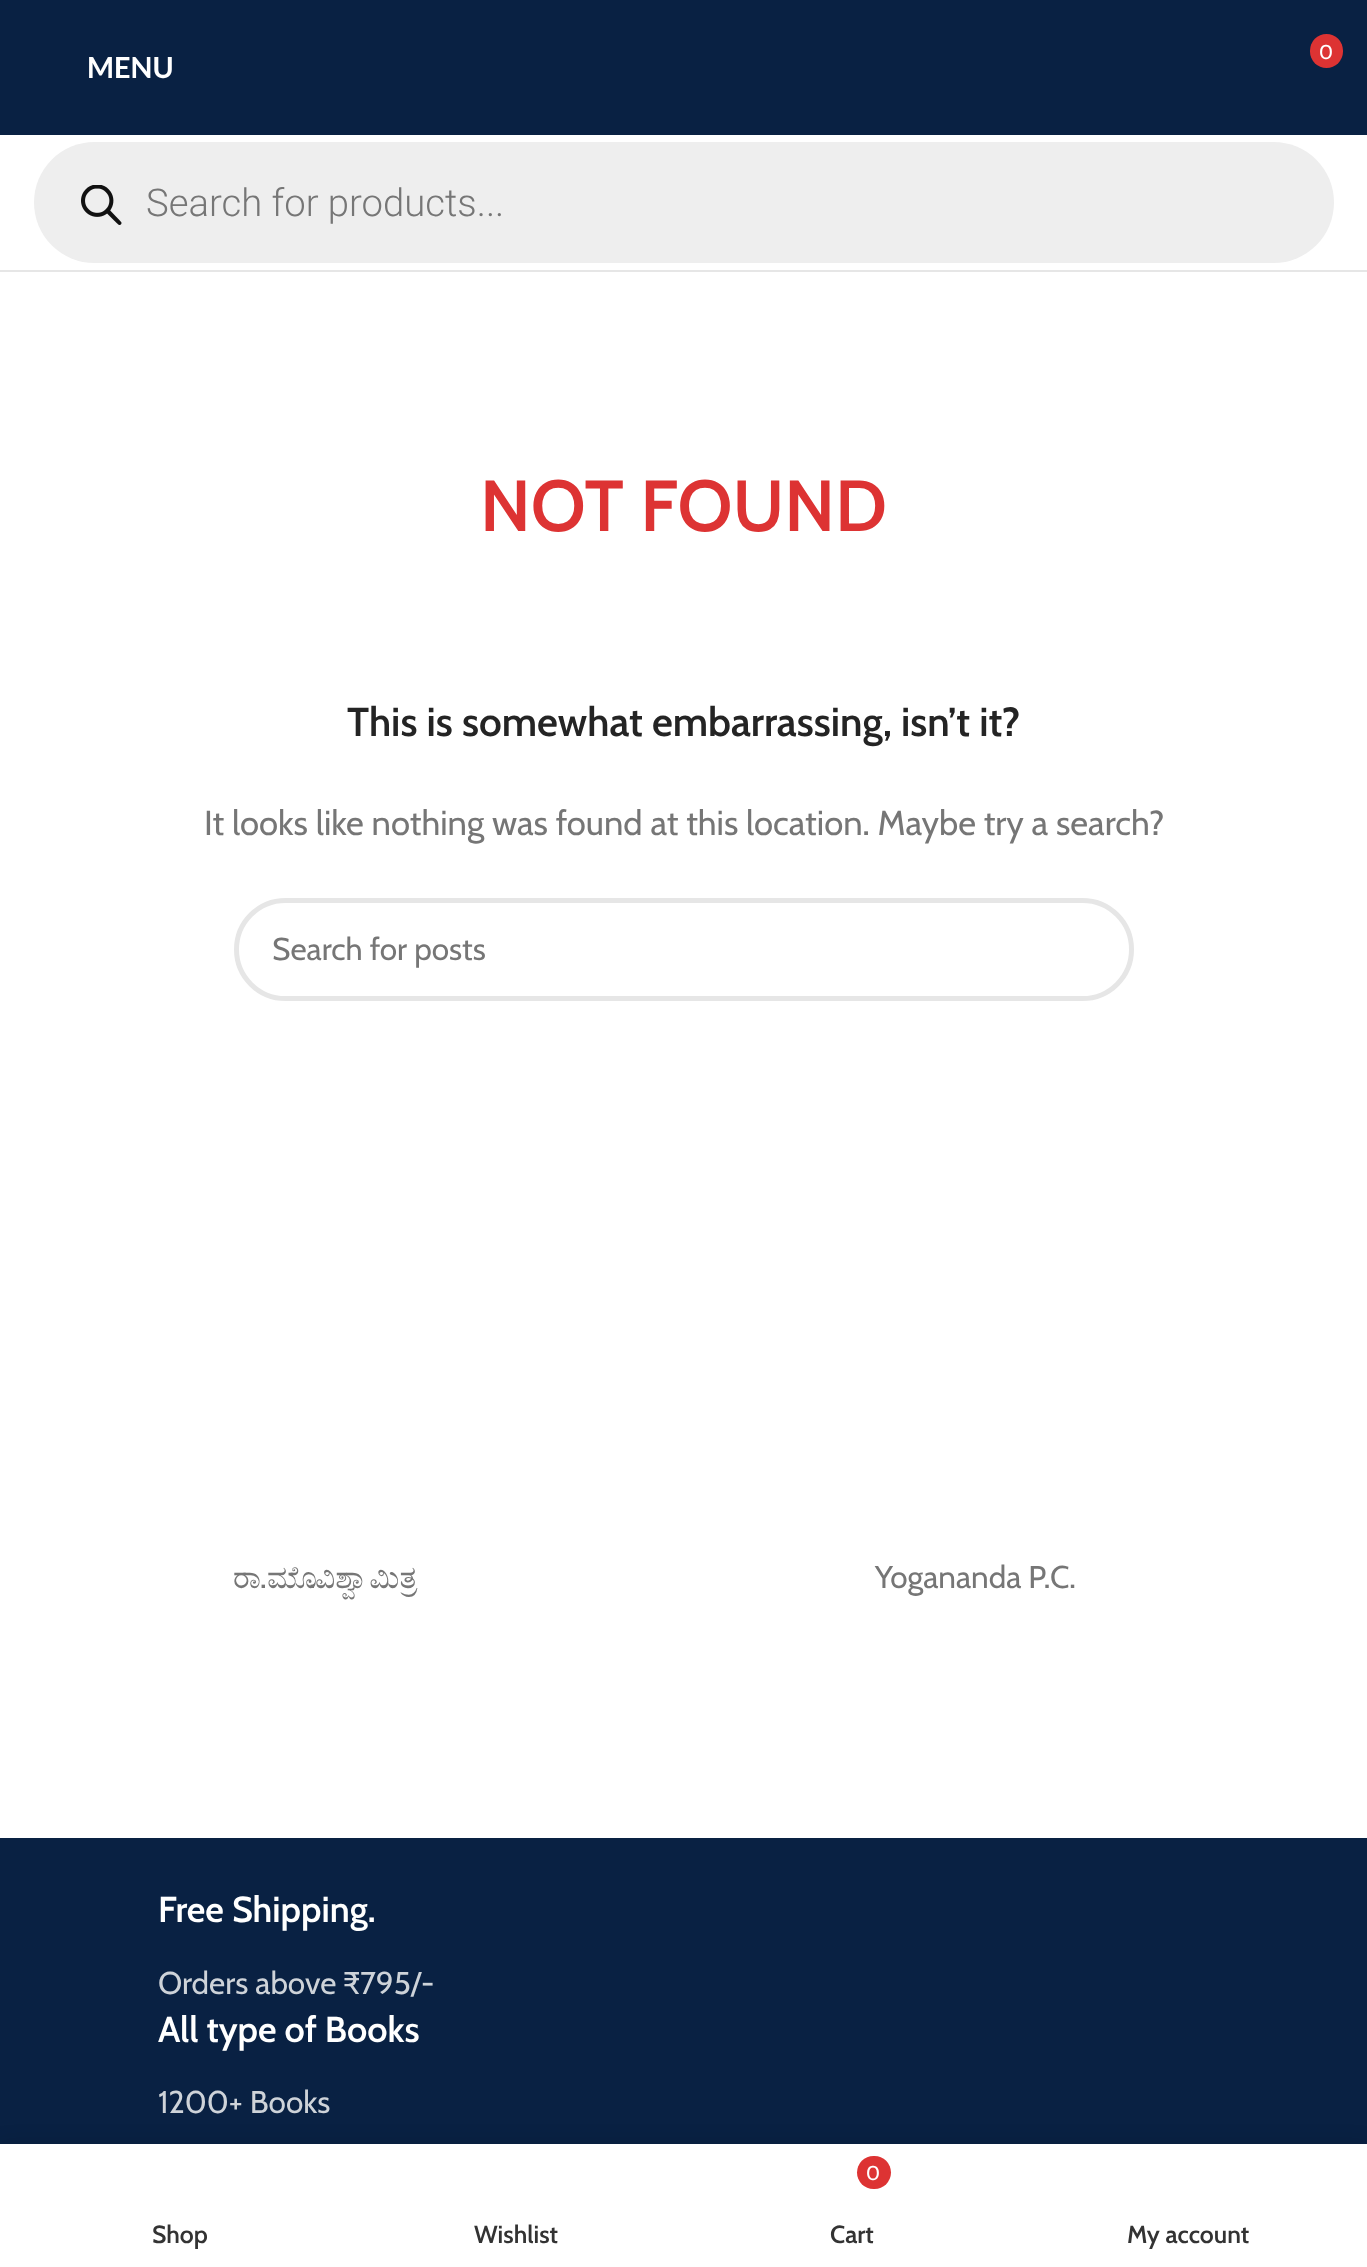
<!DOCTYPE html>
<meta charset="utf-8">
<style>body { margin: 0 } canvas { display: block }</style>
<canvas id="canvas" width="1367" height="2267"></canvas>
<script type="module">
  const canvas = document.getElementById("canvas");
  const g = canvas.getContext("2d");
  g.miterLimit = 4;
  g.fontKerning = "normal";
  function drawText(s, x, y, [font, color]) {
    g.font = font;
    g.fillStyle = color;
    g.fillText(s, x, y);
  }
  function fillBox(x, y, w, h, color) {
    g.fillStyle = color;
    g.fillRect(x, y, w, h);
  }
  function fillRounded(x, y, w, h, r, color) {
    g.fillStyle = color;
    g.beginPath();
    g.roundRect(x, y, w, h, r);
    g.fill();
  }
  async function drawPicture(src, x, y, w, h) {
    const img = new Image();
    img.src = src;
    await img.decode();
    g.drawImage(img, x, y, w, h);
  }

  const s1 = ["20px Cabin", "#FFFFFF"];
  const s2 = ["bold 29px Lato", "#FFFFFF"];
  const s3 = ["300 38.25px Roboto", "#767676"];
  const s4 = ["600 72px Cabin", "#DD3333"];
  const s5 = ["600 40.5px Cabin", "#242424"];
  const s6 = ["34.65px Cabin", "#767676"];
  const s7 = ["31.5px Cabin", "#767676"];
  const s8 = ["31.5px FreeSerif", "#767676"];
  const s9 = ["600 36px Cabin", "#FFFFFF"];
  const s10 = ["31.5px Cabin", "#CED3D9"];
  const s11 = ["600 24.75px Cabin", "#333333"];

  fillBox(0, 0, 1367, 2267, "#FFFFFF");
  fillBox(0, 0, 1367, 135, "#092143");
  fillRounded(1310, 34, 33, 34, 16.5, "#DD3333");
  drawText("0", 1319, 59, s1);
  drawText("MENU", 87, 78, s2);
  fillBox(0, 270, 1367, 2, "#E6E6E6");
  fillRounded(34, 142, 1300, 121, 60.5, "#EEEEEE");
  await drawPicture("pic1.png", 81, 185, 41, 40);
  drawText("Search for products...", 146, 216, s3);
  drawText("NOT FOUND", 480, 531, s4);
  drawText("This is somewhat embarrassing, isn’t it?", 347, 736, s5);
  drawText("It looks like nothing was found at this location. Maybe try a search?", 204, 835, s6);
  g.beginPath();
  g.roundRect(236.5, 900.5, 895, 98, 49);
  g.strokeStyle = "#E6E6E6";
  g.lineWidth = 5;
  g.stroke();
  drawText("Search for posts", 272, 960, s7);
  drawText("ರಾ", 233, 1588, s8);
  drawText(".", 260, 1588, s7);
  drawText("ಮೊ", 267, 1588, s8);
  drawText("ವಿಶ್ವಾಮಿತ್ರ", 315, 1588, s8);
  drawText(".", 309, 1588, s7);
  drawText("Yogananda P.C.", 875, 1588, s7);
  fillBox(0, 1838, 1367, 306, "#092143");
  drawText("Free Shipping.", 158, 1922, s9);
  drawText("Orders above ₹795/-", 158, 1994, s10);
  drawText("All type of Books", 158, 2042, s9);
  drawText("1200+ Books", 158, 2113, s10);
  g.fillStyle = "rgba(0, 0, 0, 0.12)";
  g.filter = "blur(10px)";
  g.beginPath();
  g.rect(0, 2144, 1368, 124);
  g.fill();
  g.filter = "none";
  fillBox(0, 2144, 1367, 123, "#FFFFFF");
  drawText("Shop", 152, 2243, s11);
  drawText("Wishlist", 474, 2243, s11);
  fillRounded(857, 2156, 34, 33, 16.5, "#DD3333");
  drawText("0", 866, 2180, s1);
  drawText("Cart", 830, 2243, s11);
  drawText("My account", 1127, 2243, s11);
</script>
